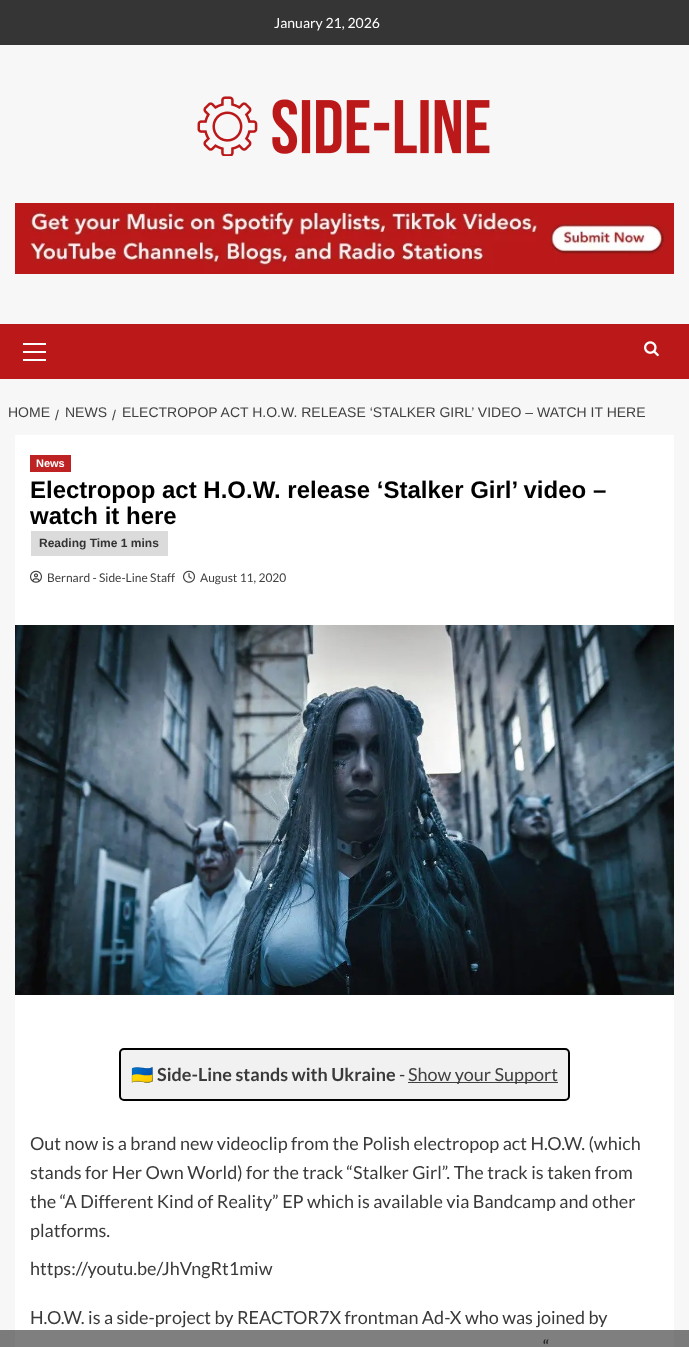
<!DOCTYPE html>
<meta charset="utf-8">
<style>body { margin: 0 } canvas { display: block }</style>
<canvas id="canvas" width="689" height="1347"></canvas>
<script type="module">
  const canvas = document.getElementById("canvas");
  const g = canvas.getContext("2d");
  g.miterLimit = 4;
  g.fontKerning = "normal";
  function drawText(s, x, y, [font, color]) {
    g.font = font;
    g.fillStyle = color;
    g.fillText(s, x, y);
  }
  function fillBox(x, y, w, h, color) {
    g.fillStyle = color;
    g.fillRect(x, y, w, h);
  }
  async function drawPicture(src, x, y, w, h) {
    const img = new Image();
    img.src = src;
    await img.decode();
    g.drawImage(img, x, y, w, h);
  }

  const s1 = ["14px Lato", "#FFFFFF"];
  const s2 = ["14px Liberation Sans", "#404040"];
  const s3 = ["bold 11px Liberation Sans", "#FFFFFF"];
  const s4 = ["bold 24px Liberation Sans", "#000000"];
  const s5 = ["bold 12px Liberation Sans", "#333333"];
  const s6 = ["12px Lato", "#404040"];
  const s7 = ["18px Noto Color Emoji", "#3A3A3A"];
  const s8 = ["bold 18px Lato", "#3A3A3A"];
  const s9 = ["18px Lato", "#3A3A3A"];
  const s10 = ["18px Lato", "#404040"];

  fillBox(0, 0, 689, 1347, "#F7F7F7");
  fillBox(0, 0, 689, 45, "#353535");
  drawText("January 21, 2026", 274, 28, s1);
  await drawPicture("pic1.png", 197, 96, 293, 60);
  await drawPicture("pic2.png", 15, 203, 659, 71);
  fillBox(0, 324, 689, 55, "#BB1919");
  fillBox(23, 351, 23, 2, "#FFFFFF");
  fillBox(23, 343, 23, 2, "#FFFFFF");
  fillBox(23, 359, 23, 2, "#FFFFFF");
  await drawPicture("pic3.png", 644, 341, 15, 16);
  drawText("HOME", 8, 417, s2);
  drawText("/", 55, 420, s2);
  drawText("NEWS", 65, 417, s2);
  drawText("/", 112, 420, s2);
  drawText("ELECTROPOP ACT H.O.W. RELEASE ‘STALKER GIRL’ VIDEO – WATCH IT HERE", 122, 417, s2);
  fillBox(15, 435, 659, 912, "#FFFFFF");
  fillBox(30, 455, 41, 17, "#BE2222");
  drawText("News", 36, 467, s3);
  drawText("Electropop act H.O.W. release ‘Stalker Girl’ video –", 30, 498, s4);
  drawText("watch it here", 30, 524, s4);
  fillBox(31, 531, 137, 25, "#DBDBDB");
  drawText("Reading Time 1 mins", 39, 547, s5);
  await drawPicture("pic4.png", 30, 570, 12, 13);
  drawText("Bernard - Side-Line Staff", 47, 582, s6);
  await drawPicture("pic5.png", 183, 570, 12, 13);
  drawText("August 11, 2020", 200, 582, s6);
  await drawPicture("pic6.png", 15, 625, 659, 370);
  g.fillStyle = "#F1F1F1";
  g.beginPath();
  g.roundRect(120, 1049, 449, 51, 4);
  g.fill();
  g.strokeStyle = "#000000";
  g.lineWidth = 2;
  g.stroke();
  drawText("🇺🇦", 131, 1081, s7);
  drawText("Side-Line stands with Ukraine", 157, 1081, s8);
  drawText("-", 399, 1081, s9);
  fillBox(408, 1082, 150, 1, "#404040");
  drawText("Show your Support", 408, 1081, s10);
  drawText("Out now is a brand new videoclip from the Polish electropop act H.O.W. (which", 30, 1150, s9);
  drawText("stands for Her Own World) for the track “Stalker Girl”. The track is taken from", 30, 1179, s9);
  drawText("the “A Different Kind of Reality” EP which is available via Bandcamp and other", 30, 1208, s9);
  drawText("platforms.", 30, 1237, s9);
  drawText("https://youtu.be/JhVngRt1miw", 30, 1275, s9);
  drawText("H.O.W. is a side-project by REACTOR7X frontman Ad-X who was joined by", 30, 1324, s9);
  drawText("“", 543, 1353, s9);
  fillBox(0, 1330, 689, 17, "rgba(0, 0, 0, 0.5)");
</script>
